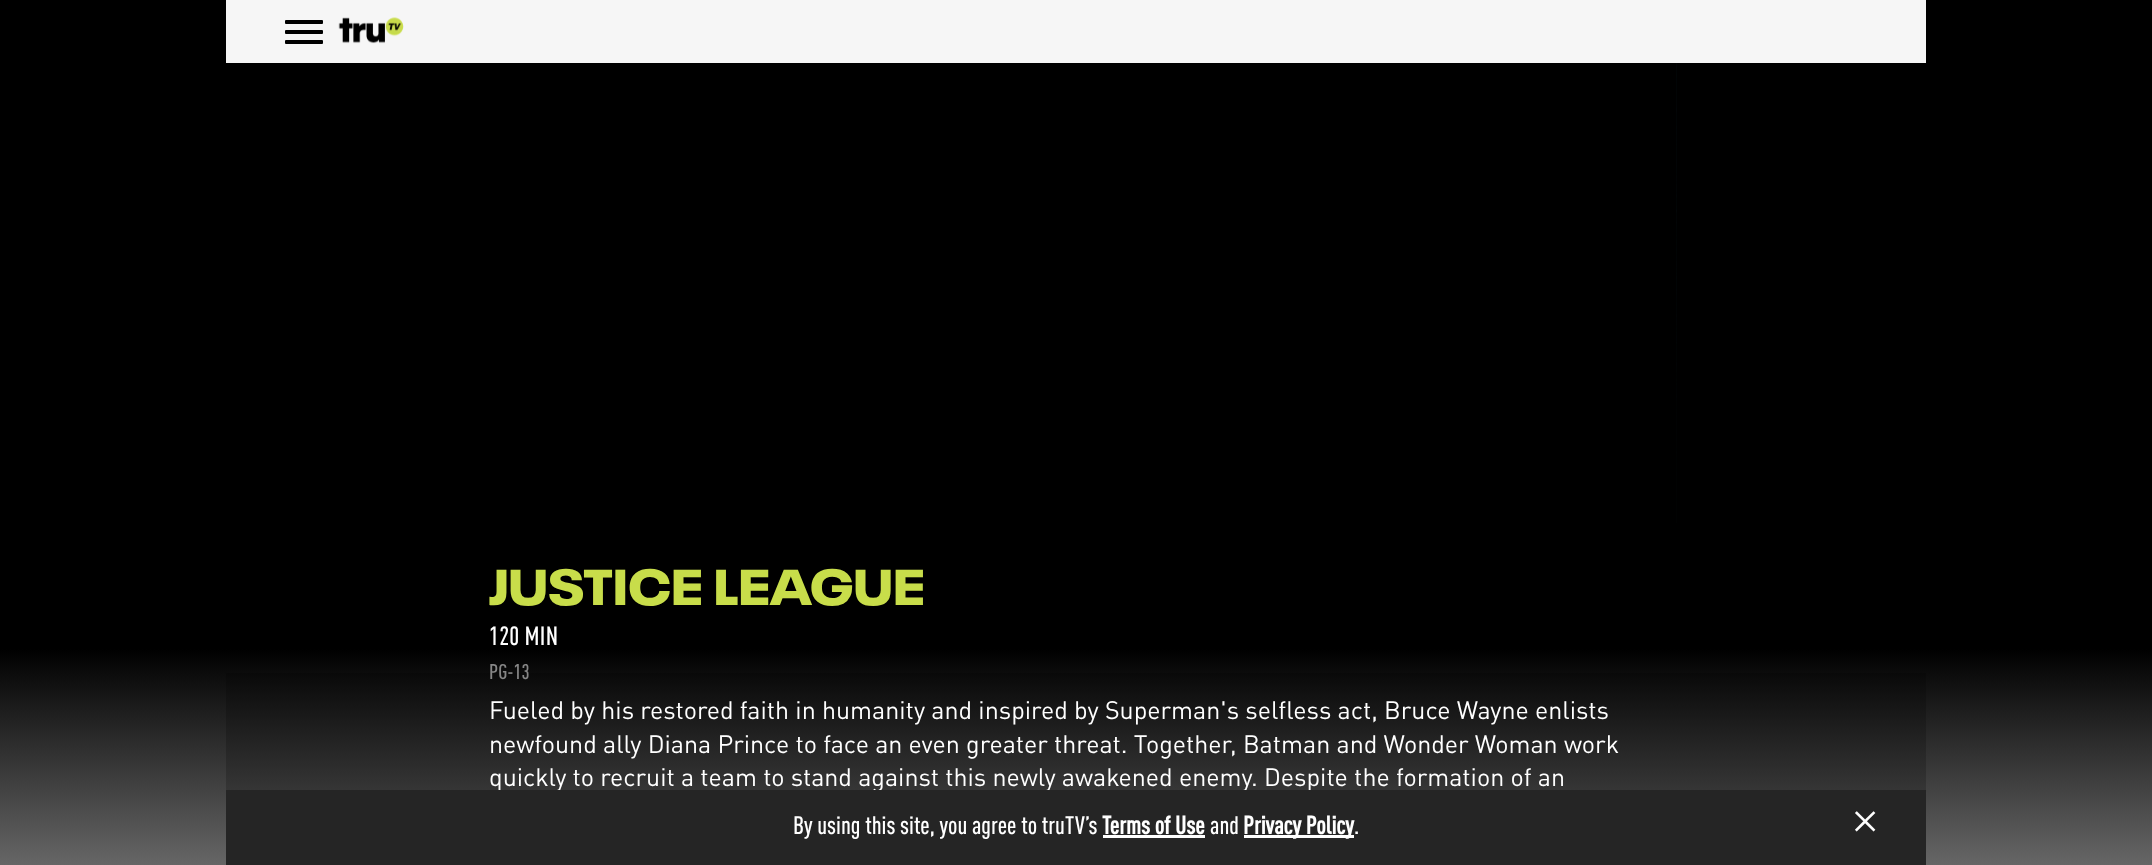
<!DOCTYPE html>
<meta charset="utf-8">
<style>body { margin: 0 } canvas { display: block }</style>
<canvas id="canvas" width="2152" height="865"></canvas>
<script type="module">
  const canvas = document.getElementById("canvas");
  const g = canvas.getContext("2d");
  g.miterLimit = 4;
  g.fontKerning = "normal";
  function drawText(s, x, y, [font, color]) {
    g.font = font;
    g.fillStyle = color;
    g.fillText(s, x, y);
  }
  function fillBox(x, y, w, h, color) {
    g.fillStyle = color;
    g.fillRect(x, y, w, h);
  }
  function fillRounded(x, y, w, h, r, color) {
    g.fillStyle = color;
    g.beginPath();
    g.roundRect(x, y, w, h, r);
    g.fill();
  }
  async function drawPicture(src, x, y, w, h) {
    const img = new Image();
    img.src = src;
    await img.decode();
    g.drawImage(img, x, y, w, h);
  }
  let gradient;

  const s1 = ["900 50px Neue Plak", "#C8DD4A"];
  const s2 = ["500 26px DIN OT", "#FFFFFF"];
  const s3 = ["500 21px DIN", "#868686"];
  const s4 = ["25px DIN OT", "#FFFFFF"];
  const s5 = ["500 25px DIN", "#FFFFFF"];
  const s6 = ["bold 25px DIN", "#FFFFFF"];
  const s7 = ["50px Liberation Serif", "#FFFFFF"];

  fillBox(0, 0, 2152, 865, "#FFFFFF");
  gradient = g.createLinearGradient(1076, 0, 1076, 865);
  gradient.addColorStop(0, "#000000");
  gradient.addColorStop(0.75, "#000000");
  gradient.addColorStop(1, "#666666");
  g.fillStyle = gradient;
  g.fillRect(0, 0, 2152, 865);
  gradient = g.createLinearGradient(1076, 0, 1076, 865);
  gradient.addColorStop(0, "#000000");
  gradient.addColorStop(0.75, "#000000");
  gradient.addColorStop(1, "#525252");
  g.fillStyle = gradient;
  g.fillRect(226, 673, 1700, 117);
  fillBox(226, 0, 1700, 63, "#F6F6F6");
  await drawPicture("pic1.png", 338, 17, 66, 27);
  fillRounded(285, 20, 38, 4, 1, "#000000");
  fillRounded(285, 30, 38, 4, 1, "#000000");
  fillRounded(285, 40, 38, 4, 1, "#000000");
  await drawPicture("pic2.png", 1676, 63, 1, 460);
  drawText("JUSTICE LEAGUE", 489, 605, s1);
  g.letterSpacing = "0.25px";
  drawText("120 MIN", 489, 645, s2);
  g.letterSpacing = "0px";
  drawText("PG-13", 489, 679, s3);
  drawText("Fueled by his restored faith in humanity and inspired by Superman's selfless act, Bruce Wayne enlists", 489, 719, s4);
  drawText("newfound ally Diana Prince to face an even greater threat. Together, Batman and Wonder Woman work", 489, 753, s4);
  drawText("quickly to recruit a team to stand against this newly awakened enemy. Despite the formation of an", 489, 786, s4);
  fillBox(226, 790, 1700, 75, "#252525");
  drawText("By using this site, you agree to truTV’s", 793, 834, s5);
  drawText("Terms of Use", 1102, 834, s6);
  fillBox(1103, 835, 102, 3, "#FFFFFF");
  drawText("and", 1210, 834, s5);
  fillBox(1244, 835, 110, 3, "#FFFFFF");
  drawText("Privacy Policy", 1243, 834, s6);
  drawText(".", 1354, 834, s5);
  drawText("×", 1851, 838, s7);
</script>
